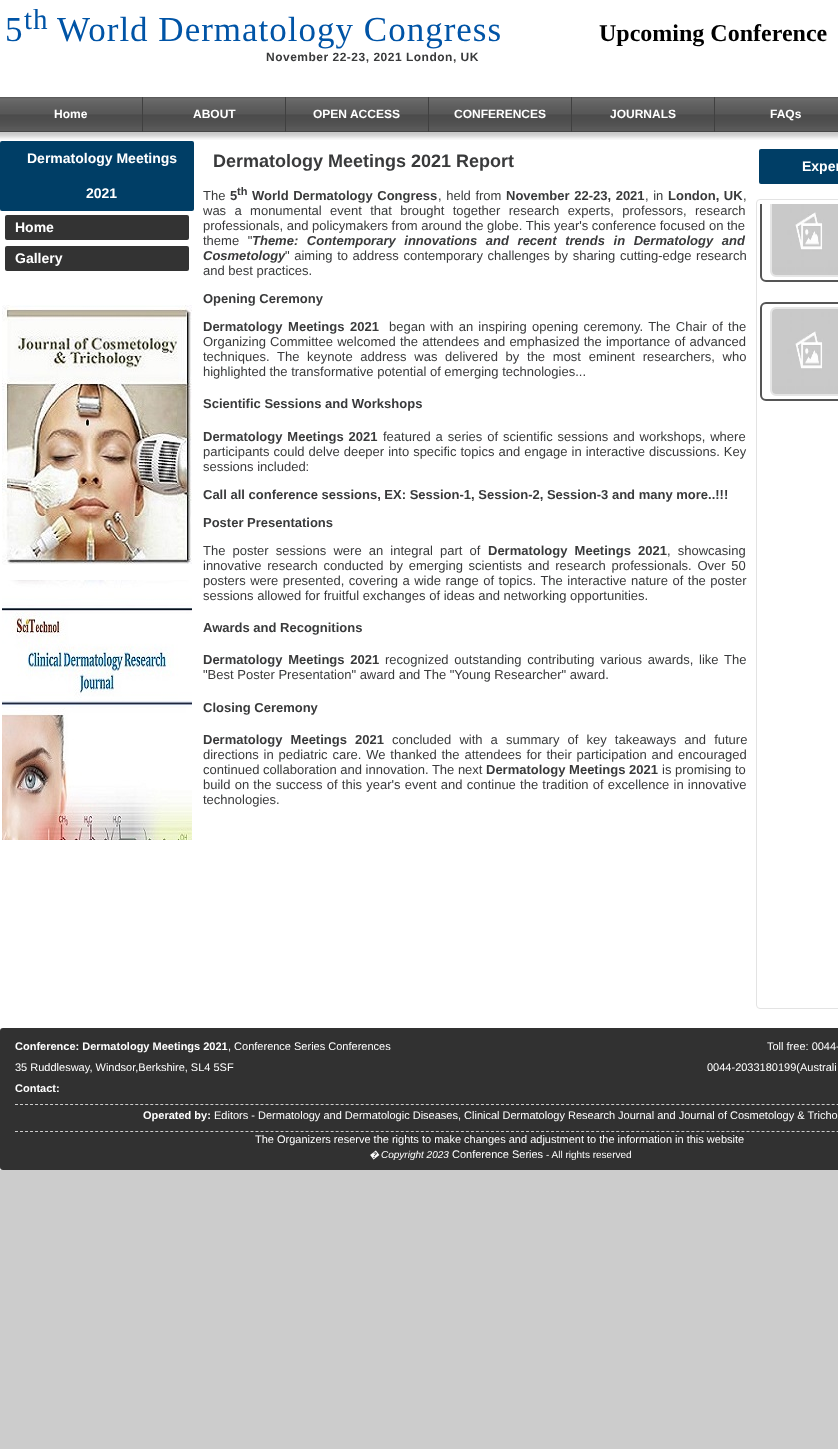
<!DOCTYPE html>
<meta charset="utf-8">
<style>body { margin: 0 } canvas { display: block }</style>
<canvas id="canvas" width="838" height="1449"></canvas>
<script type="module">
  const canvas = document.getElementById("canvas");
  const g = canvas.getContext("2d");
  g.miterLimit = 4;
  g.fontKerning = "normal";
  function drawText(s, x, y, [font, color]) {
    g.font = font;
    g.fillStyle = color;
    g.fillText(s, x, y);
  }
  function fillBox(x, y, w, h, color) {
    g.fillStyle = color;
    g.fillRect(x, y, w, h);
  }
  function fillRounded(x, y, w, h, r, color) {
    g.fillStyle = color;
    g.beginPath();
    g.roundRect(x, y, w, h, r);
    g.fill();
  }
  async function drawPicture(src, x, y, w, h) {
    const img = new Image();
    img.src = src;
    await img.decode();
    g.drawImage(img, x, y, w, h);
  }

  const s1 = ["35px Liberation Serif", "#0054A6"];
  const s2 = ["29px Liberation Serif", "#0054A6"];
  const s3 = ["bold 12px Liberation Sans", "#393A3B"];
  const s4 = ["bold 24px Liberation Serif", "#000000"];
  const s5 = ["bold 12px Liberation Sans", "#FFFFFF"];
  const s6 = ["bold 14px Liberation Sans", "#FFFFFF"];
  const s7 = ["bold 18px Liberation Sans", "#393A3B"];
  const s8 = ["13px Liberation Sans", "#393A3B"];
  const s9 = ["bold 13px Liberation Sans", "#393A3B"];
  const s10 = ["bold 11px Liberation Sans", "#393A3B"];
  const s11 = ["italic bold 13px Liberation Sans", "#393A3B"];
  const s12 = ["bold 11px Liberation Sans", "#FFFFFF"];
  const s13 = ["11px Liberation Sans", "#FFFFFF"];
  const s14 = ["italic bold 10px Noto Sans", "#FFFFFF"];
  const s15 = ["italic 10px Liberation Sans", "#FFFFFF"];
  const s16 = ["10px Liberation Sans", "#FFFFFF"];

  fillBox(0, 0, 838, 1449, "#CCCCCC");
  fillBox(0, 0, 838, 1170, "#FFFFFF");
  g.letterSpacing = "1px";
  drawText("5", 5, 41, s1);
  drawText("th", 24, 29, s2);
  drawText("World Dermatology Congress", 57, 41, s1);
  g.letterSpacing = "0.5px";
  drawText("November 22-23, 2021 London, UK", 266, 61, s3);
  g.letterSpacing = "0px";
  drawText("Upcoming Conference", 599, 41, s4);
  await drawPicture("pic1.png", 0, 97, 838, 35);
  drawText("Home", 54, 118, s5);
  fillBox(142, 97, 1, 35, "#404040");
  drawText("ABOUT", 193, 118, s5);
  fillBox(285, 97, 1, 35, "#404040");
  drawText("OPEN ACCESS", 313, 118, s5);
  fillBox(428, 97, 1, 35, "#404040");
  drawText("CONFERENCES", 454, 118, s5);
  fillBox(571, 97, 1, 35, "#404040");
  drawText("JOURNALS", 610, 118, s5);
  fillBox(714, 97, 1, 35, "#404040");
  drawText("FAQs", 770, 118, s5);
  await drawPicture("pic2.png", 0, 132, 838, 8);
  fillRounded(0, 141, 194, 70, 2, "#003E66");
  drawText("Dermatology Meetings", 27, 163, s6);
  drawText("2021", 86, 198, s6);
  fillRounded(5, 215, 184, 25, 2, "#333333");
  drawText("Home", 15, 232, s6);
  fillRounded(5, 246, 184, 25, 2, "#333333");
  drawText("Gallery", 15, 263, s6);
  await drawPicture("pic3.png", 2, 305, 190, 260);
  await drawPicture("pic4.png", 2, 580, 190, 260);
  drawText("Dermatology Meetings 2021 Report", 213, 167, s7);
  drawText("The", 203, 200, s8);
  drawText("5", 230, 200, s9);
  drawText("th", 237, 195, s10);
  g.wordSpacing = "1px";
  drawText("World Dermatology Congress", 252, 200, s9);
  drawText(", held from", 438, 200, s8);
  drawText("November 22-23, 2021", 506, 200, s9);
  drawText(", in", 645, 200, s8);
  drawText("London, UK", 668, 200, s9);
  g.wordSpacing = "0px";
  drawText(",", 743, 200, s8);
  g.wordSpacing = "4.75px";
  drawText("was a monumental event that brought together research experts, professors, research", 203, 215, s8);
  g.wordSpacing = "0px";
  drawText("professionals, and policymakers from around the globe. This year's conference focused on the", 203, 230, s8);
  g.wordSpacing = "5px";
  drawText("theme \"", 203, 245, s8);
  drawText("Theme: Contemporary innovations and recent trends in Dermatology and", 252, 245, s11);
  g.wordSpacing = "0px";
  drawText("Cosmetology", 203, 260, s11);
  g.wordSpacing = "1px";
  drawText("\" aiming to address contemporary challenges by sharing cutting-edge research", 285, 260, s8);
  g.wordSpacing = "0px";
  drawText("and best practices.", 203, 275, s8);
  drawText("Opening Ceremony", 203, 303, s9);
  g.wordSpacing = "2px";
  drawText("Dermatology Meetings 2021", 203, 331, s9);
  g.wordSpacing = "1.6px";
  drawText("began with an inspiring opening ceremony. The Chair of the", 389, 331, s8);
  g.wordSpacing = "0.6px";
  drawText("Organizing Committee welcomed the attendees and emphasized the importance of advanced", 203, 346, s8);
  g.wordSpacing = "4.1px";
  drawText("techniques. The keynote address was delivered by the most eminent researchers, who", 203, 361, s8);
  g.wordSpacing = "0px";
  drawText("highlighted the transformative potential of emerging technologies...", 203, 376, s8);
  drawText("Scientific Sessions and Workshops", 203, 408, s9);
  g.wordSpacing = "1.25px";
  drawText("Dermatology Meetings 2021", 203, 441, s9);
  drawText("featured a series of scientific sessions and workshops, where", 383, 441, s8);
  g.wordSpacing = "0.4px";
  drawText("participants could delve deeper into specific topics and engage in interactive discussions. Key", 203, 456, s8);
  g.wordSpacing = "0px";
  drawText("sessions included:", 203, 471, s8);
  drawText("Call all conference sessions, EX: Session-1, Session-2, Session-3 and many more..!!!", 203, 499, s9);
  drawText("Poster Presentations", 203, 527, s9);
  g.wordSpacing = "3.5px";
  drawText("The poster sessions were an integral part of", 203, 555, s8);
  drawText("Dermatology Meetings 2021", 488, 555, s9);
  drawText(", showcasing", 667, 555, s8);
  g.wordSpacing = "2.1px";
  drawText("innovative research conducted by emerging scientists and research professionals. Over 50", 203, 570, s8);
  g.wordSpacing = "0.9px";
  drawText("posters were presented, covering a wide range of topics. The interactive nature of the poster", 203, 585, s8);
  g.wordSpacing = "0px";
  drawText("sessions allowed for fruitful exchanges of ideas and networking opportunities.", 203, 600, s8);
  drawText("Awards and Recognitions", 203, 632, s9);
  g.wordSpacing = "2.1px";
  drawText("Dermatology Meetings 2021", 203, 664, s9);
  drawText("recognized outstanding contributing various awards, like The", 385, 664, s8);
  g.wordSpacing = "0px";
  drawText("\"Best Poster Presentation\" award and The \"Young Researcher\" award.", 203, 679, s8);
  drawText("Closing Ceremony", 203, 712, s9);
  g.wordSpacing = "4.5px";
  drawText("Dermatology Meetings 2021", 203, 744, s9);
  drawText("concluded with a summary of key takeaways and future", 392, 744, s8);
  g.wordSpacing = "1.25px";
  drawText("directions in pediatric care. We thanked the attendees for their participation and encouraged", 203, 759, s8);
  g.wordSpacing = "0px";
  drawText("continued collaboration and innovation. The next", 203, 774, s8);
  drawText("Dermatology Meetings 2021", 486, 774, s9);
  drawText("is promising to", 662, 774, s8);
  g.wordSpacing = "0.6px";
  drawText("build on the success of this year's event and continue the tradition of excellence in innovative", 203, 789, s8);
  g.wordSpacing = "0px";
  drawText("technologies.", 203, 804, s8);
  fillRounded(759, 149, 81, 35, 2, "#003E66");
  drawText("Exper", 802, 171, s6);
  g.beginPath();
  g.roundRect(756.5, 199.5, 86, 809, 3.5);
  g.strokeStyle = "#E3E3E3";
  g.stroke();
  g.save();
  g.beginPath();
  g.rect(757, 204, 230, 800);
  g.clip();
  g.beginPath();
  g.roundRect(761, 184, 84, 97, 5);
  g.strokeStyle = "#555555";
  g.lineWidth = 2;
  g.stroke();
  g.beginPath();
  g.roundRect(771, 189, 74, 87, 5);
  g.strokeStyle = "#E5E5E5";
  g.stroke();
  g.restore();
  await drawPicture("pic5.png", 772, 204, 66, 71);
  g.beginPath();
  g.roundRect(761, 303, 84, 97, 5);
  g.strokeStyle = "#555555";
  g.lineWidth = 2;
  g.stroke();
  g.beginPath();
  g.roundRect(771, 308, 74, 87, 5);
  g.strokeStyle = "#E5E5E5";
  g.stroke();
  await drawPicture("pic6.png", 772, 309, 66, 85);
  fillRounded(0, 1028, 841, 142, 3, "#313131");
  drawText("Conference: Dermatology Meetings 2021", 15, 1050, s12);
  drawText(", Conference Series Conferences", 228, 1050, s13);
  drawText("35 Ruddlesway, Windsor,Berkshire, SL4 5SF", 15, 1071, s13);
  drawText("Contact:", 15, 1092, s12);
  drawText("Toll free: 0044-", 767, 1050, s13);
  drawText("0044-2033180199(Australi", 707, 1071, s13);
  g.beginPath();
  g.moveTo(15, 1104.5);
  g.lineTo(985, 1104.5);
  g.strokeStyle = "#CCCCCC";
  g.lineWidth = 1;
  g.setLineDash([3, 2.01]);
  g.stroke();
  drawText("Operated by:", 143, 1119, s12);
  drawText("Editors - Dermatology and Dermatologic Diseases, Clinical Dermatology Research Journal and Journal of Cosmetology & Tricho", 214, 1119, s13);
  g.beginPath();
  g.moveTo(15, 1131.5);
  g.lineTo(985, 1131.5);
  g.stroke();
  drawText("The Organizers reserve the rights to make changes and adjustment to the information in this website", 255, 1143, s13);
  drawText("�", 369, 1158, s14);
  drawText("Copyright 2023", 381, 1158, s15);
  drawText("Conference Series", 452, 1158, s13);
  drawText("- All rights reserved", 546, 1158, s16);
</script>
